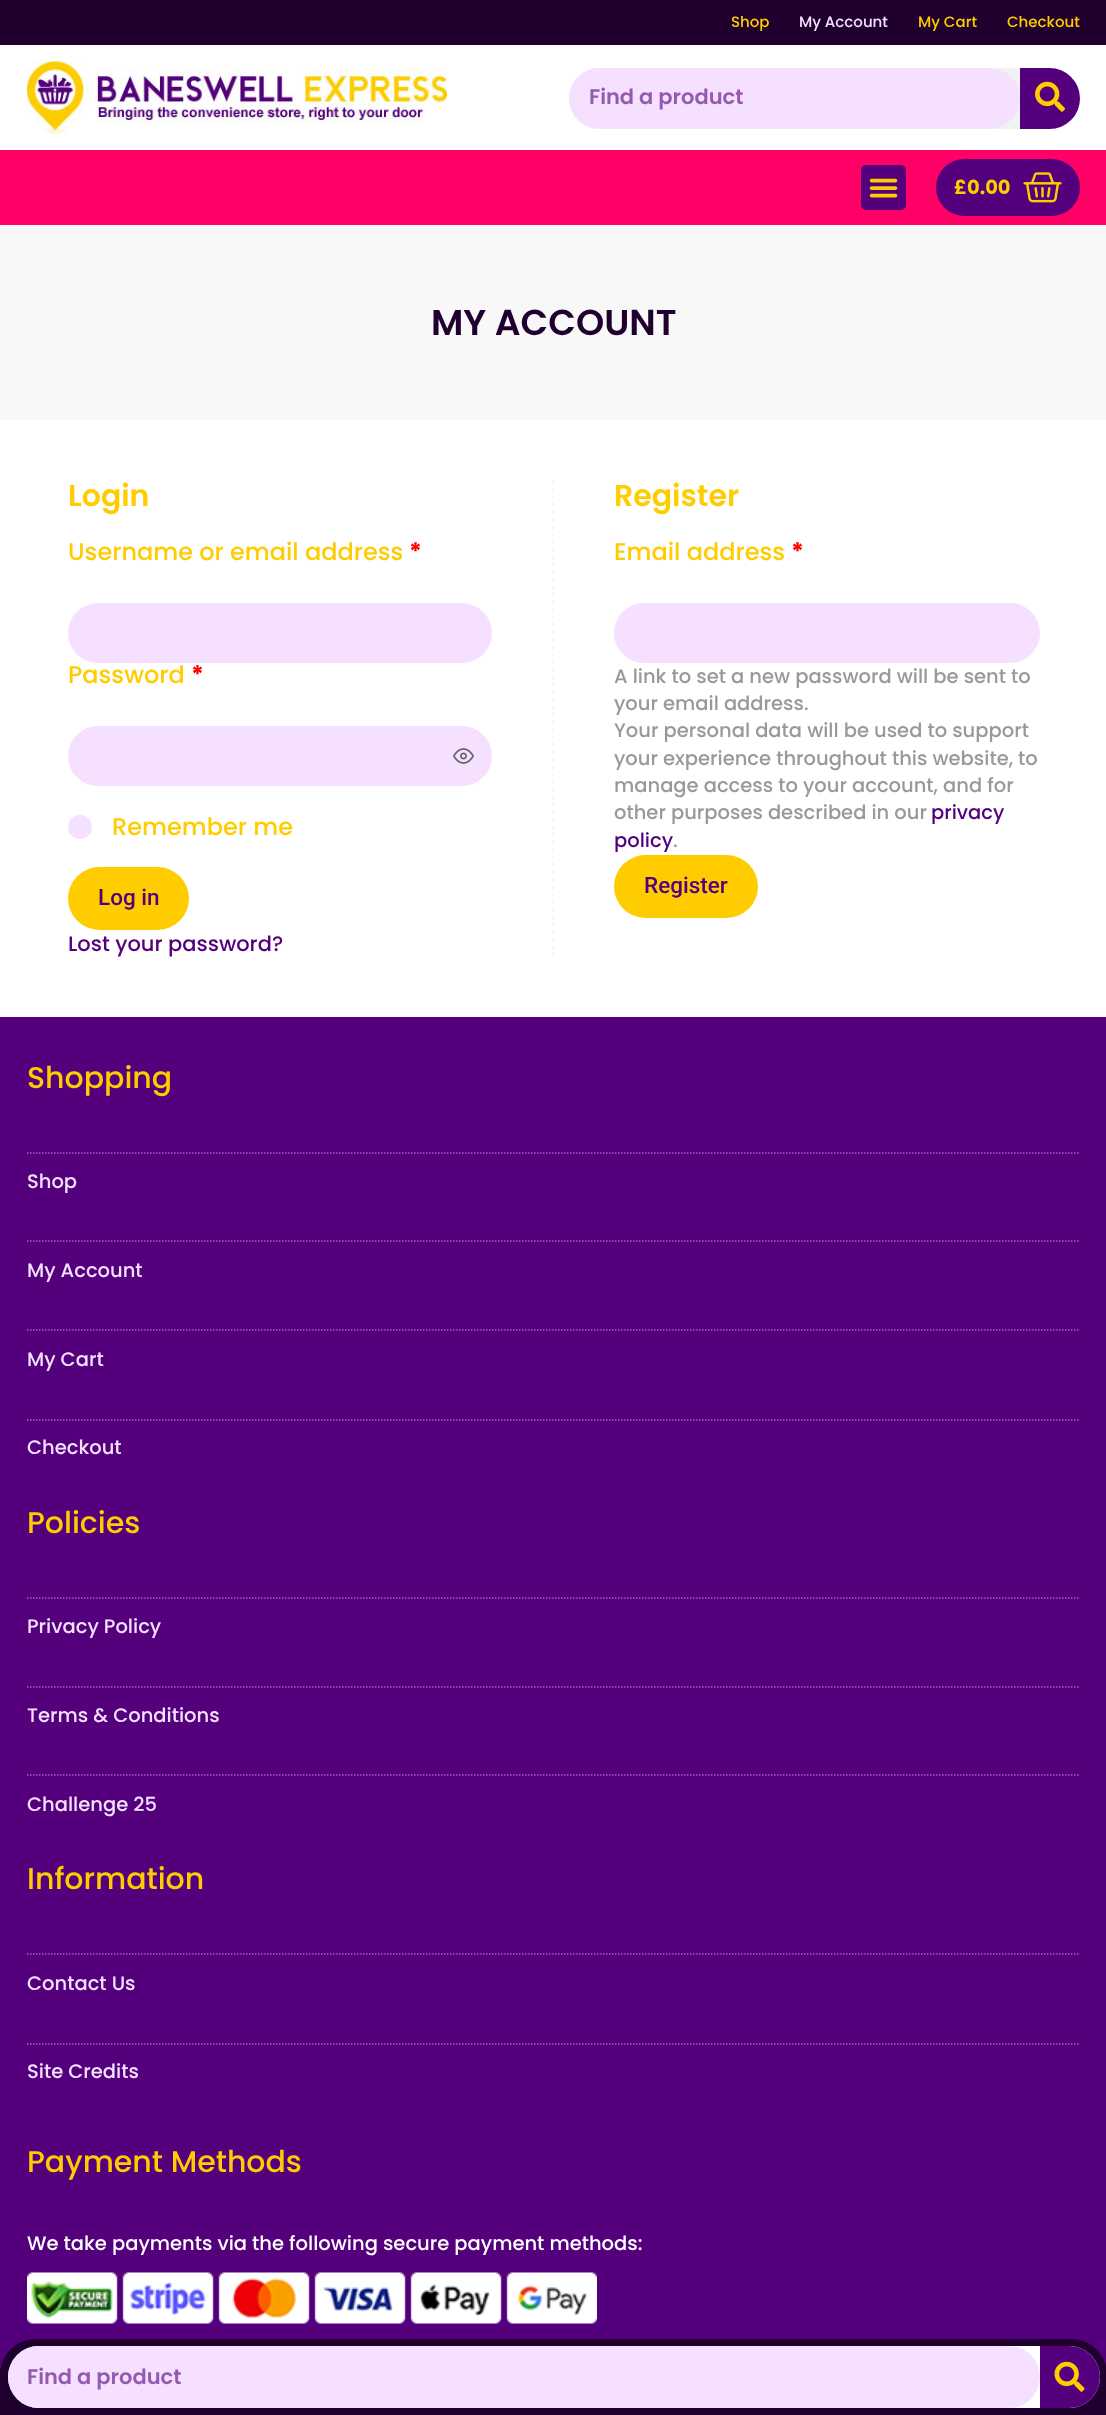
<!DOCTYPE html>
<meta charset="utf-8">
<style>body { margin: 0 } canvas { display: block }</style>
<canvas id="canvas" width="1106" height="2415"></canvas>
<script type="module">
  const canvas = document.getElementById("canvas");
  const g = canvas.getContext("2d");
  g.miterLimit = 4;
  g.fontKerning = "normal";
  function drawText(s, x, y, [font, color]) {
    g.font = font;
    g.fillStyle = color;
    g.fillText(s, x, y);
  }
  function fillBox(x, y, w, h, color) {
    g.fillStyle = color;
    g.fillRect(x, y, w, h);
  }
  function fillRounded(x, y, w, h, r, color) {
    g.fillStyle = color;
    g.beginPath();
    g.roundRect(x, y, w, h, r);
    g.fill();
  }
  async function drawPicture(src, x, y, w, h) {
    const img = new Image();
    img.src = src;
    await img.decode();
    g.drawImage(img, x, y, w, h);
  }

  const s1 = ["500 15px Poppins", "#FFCC00"];
  const s2 = ["500 15px Poppins", "#F5E1FF"];
  const s3 = ["600 21px Poppins", "#945AB0"];
  const s4 = ["bold 19.5px Poppins", "#FFCC00"];
  const s5 = ["600 36px Poppins", "#20002F"];
  const s6 = ["600 30px Poppins", "#FFCC00"];
  const s7 = ["500 24px Poppins", "#FFCC00"];
  const s8 = ["bold 24px Poppins", "#FF0000"];
  const s9 = ["500 22.5px Roboto", "#54007C"];
  const s10 = ["500 21px Poppins", "#54007C"];
  const s11 = ["500 19.5px Poppins", "#999999"];
  const s12 = ["500 19.5px Poppins", "#54007C"];
  const s13 = ["500 30px Poppins", "#FFCC00"];
  const s14 = ["500 19.5px Poppins", "#F5E1FF"];
  const s15 = ["500 19.5px Poppins", "#FFFFFF"];

  fillBox(0, 0, 1106, 2415, "#FFFFFF");
  fillBox(0, 0, 1106, 45, "#20002F");
  drawText("Shop", 731, 27, s1);
  drawText("My Account", 799, 27, s2);
  drawText("My Cart", 918, 27, s1);
  drawText("Checkout", 1007, 27, s1);
  await drawPicture("pic1.png", 27, 61, 420, 73);
  fillRounded(569, 68, 511, 61, 30.5, "#F1F2F3");
  fillRounded(569, 68, 451, 61, 30.5, "#F5E1FF");
  drawText("Find a product", 589, 104, s3);
  g.fillStyle = "#54007C";
  g.beginPath();
  g.roundRect(1020, 68, 60, 61, [0, 30.5, 30.5, 0]);
  g.fill();
  await drawPicture("pic2.png", 1035, 81, 30, 31);
  fillBox(0, 150, 1106, 75, "#FF0066");
  fillRounded(861, 165, 45, 45, 5, "#54007C");
  await drawPicture("pic3.png", 869, 178, 29, 20);
  fillRounded(936, 159, 144, 57, 28.5, "#54007C");
  drawText("£0.00", 954, 194, s4);
  await drawPicture("pic4.png", 1023, 172, 39, 31);
  fillBox(0, 225, 1106, 195, "#F8F8F8");
  drawText("MY ACCOUNT", 431, 335, s5);
  g.beginPath();
  g.moveTo(553, 480);
  g.lineTo(553, 957);
  g.strokeStyle = "#F2F2F2";
  g.lineWidth = 1.5;
  g.setLineDash([4.5, 3]);
  g.stroke();
  drawText("Login", 68, 506, s6);
  drawText("Username or email address", 68, 560, s7);
  drawText("*", 409, 560, s8);
  fillRounded(68, 603, 424, 60, 30, "#F5E1FF");
  drawText("Password", 68, 683, s7);
  drawText("*", 191, 683, s8);
  fillRounded(68, 726, 424, 60, 30, "#F5E1FF");
  await drawPicture("pic5.png", 453, 748, 21, 16);
  g.beginPath();
  g.arc(80, 827, 12, 0, Math.PI * 2);
  g.fill();
  drawText("Remember me", 112, 835, s7);
  fillRounded(68, 867, 121, 63, 31.5, "#FFCC00");
  drawText("Log in", 98, 905, s9);
  drawText("Lost your password?", 68, 951, s10);
  drawText("Register", 614, 506, s6);
  drawText("Email address", 614, 560, s7);
  drawText("*", 791, 560, s8);
  fillRounded(614, 603, 426, 60, 30, "#F5E1FF");
  drawText("A link to set a new password will be sent to", 614, 683, s11);
  drawText("your email address.", 614, 710, s11);
  drawText("Your personal data will be used to support", 614, 737, s11);
  drawText("your experience throughout this website, to", 614, 765, s11);
  drawText("manage access to your account, and for", 614, 792, s11);
  drawText("other purposes described in our", 614, 819, s11);
  drawText("privacy", 931, 819, s12);
  drawText("policy", 614, 847, s12);
  drawText(".", 673, 847, s11);
  fillRounded(614, 855, 144, 63, 31.5, "#FFCC00");
  drawText("Register", 644, 893, s9);
  fillBox(0, 1017, 1106, 1352, "#54007C");
  drawText("Shopping", 27, 1088, s13);
  g.beginPath();
  g.moveTo(27, 1153);
  g.lineTo(1080, 1153);
  g.strokeStyle = "#9B63B6";
  g.setLineDash([1.5, 1.5]);
  g.stroke();
  drawText("Shop", 27, 1188, s14);
  g.beginPath();
  g.moveTo(27, 1241);
  g.lineTo(1080, 1241);
  g.stroke();
  drawText("My Account", 27, 1277, s14);
  g.beginPath();
  g.moveTo(27, 1330);
  g.lineTo(1080, 1330);
  g.stroke();
  drawText("My Cart", 27, 1366, s14);
  g.beginPath();
  g.moveTo(27, 1420);
  g.lineTo(1080, 1420);
  g.stroke();
  drawText("Checkout", 27, 1454, s14);
  drawText("Policies", 27, 1533, s13);
  g.beginPath();
  g.moveTo(27, 1598);
  g.lineTo(1080, 1598);
  g.stroke();
  drawText("Privacy Policy", 27, 1633, s14);
  g.beginPath();
  g.moveTo(27, 1687);
  g.lineTo(1080, 1687);
  g.stroke();
  drawText("Terms & Conditions", 27, 1722, s14);
  g.beginPath();
  g.moveTo(27, 1775);
  g.lineTo(1080, 1775);
  g.stroke();
  drawText("Challenge 25", 27, 1811, s14);
  drawText("Information", 27, 1889, s13);
  g.beginPath();
  g.moveTo(27, 1954);
  g.lineTo(1080, 1954);
  g.stroke();
  drawText("Contact Us", 27, 1990, s14);
  g.beginPath();
  g.moveTo(27, 2044);
  g.lineTo(1080, 2044);
  g.stroke();
  drawText("Site Credits", 27, 2078, s14);
  drawText("Payment Methods", 27, 2172, s13);
  drawText("We take payments via the following secure payment methods:", 27, 2250, s15);
  await drawPicture("pic6.png", 27, 2272, 570, 52);
  fillBox(0, 2369, 1, 6, "#20002F");
  g.beginPath();
  g.moveTo(36, 2339);
  g.lineTo(1071, 2339);
  g.bezierCurveTo(1091, 2339, 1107, 2355, 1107, 2375);
  g.lineTo(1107, 2415);
  g.lineTo(0, 2415);
  g.lineTo(0, 2375);
  g.bezierCurveTo(0, 2355, 16, 2339, 36, 2339);
  g.closePath();
  g.fill();
  fillRounded(8, 2346, 1092, 62, 31, "#FFFFFF");
  fillRounded(8, 2346, 1032, 62, 31, "#F5E1FF");
  drawText("Find a product", 27, 2384, s3);
  g.fillStyle = "#54007C";
  g.beginPath();
  g.roundRect(1040, 2346, 60, 62, [0, 31, 31, 0]);
  g.fill();
  await drawPicture("pic7.png", 1054, 2361, 31, 31);
</script>
